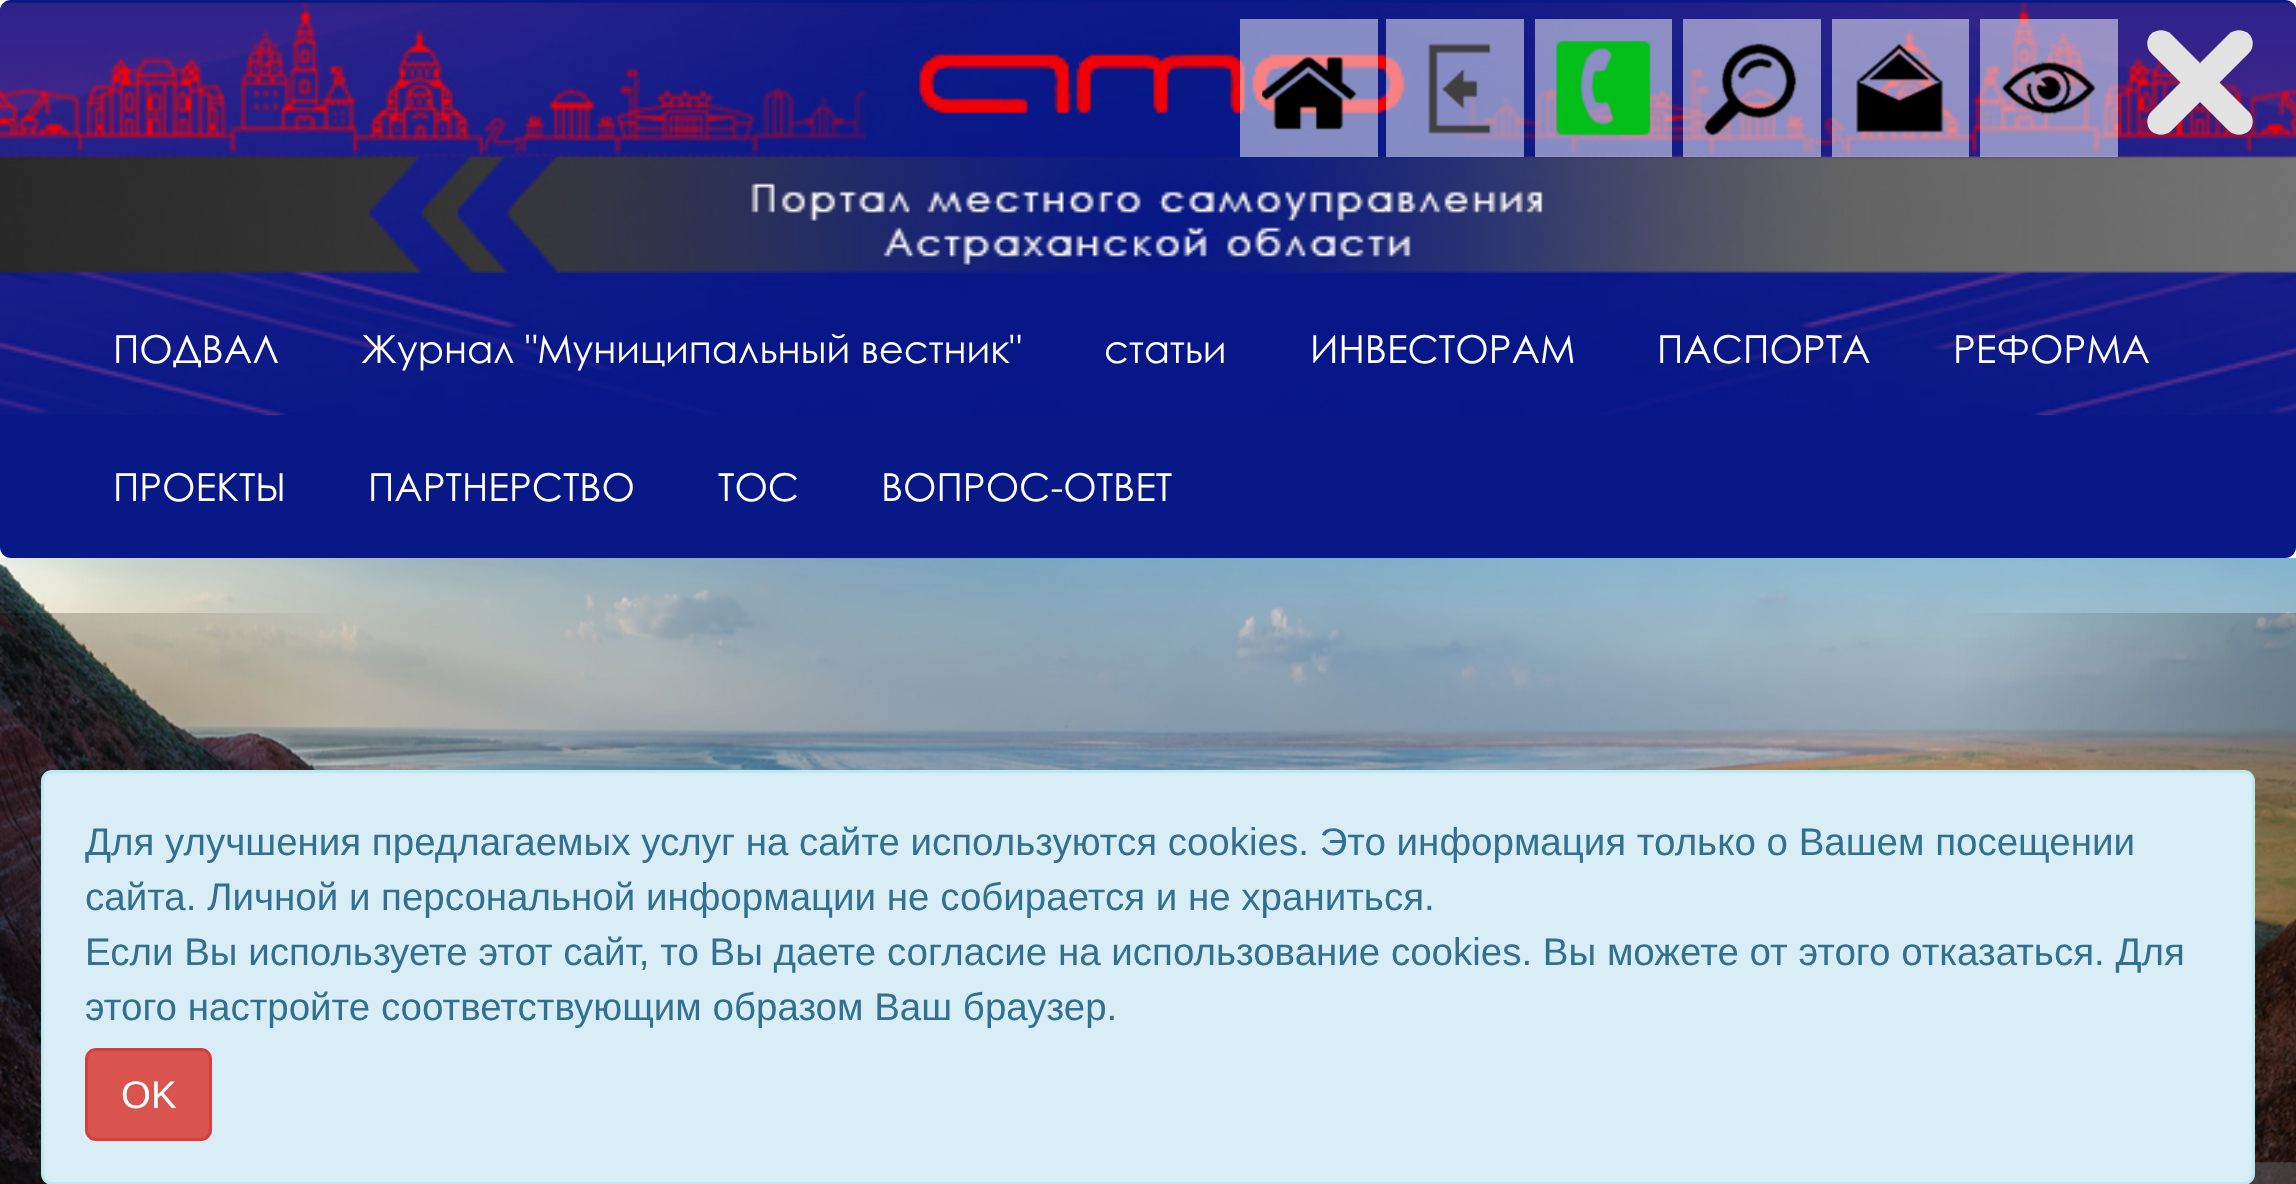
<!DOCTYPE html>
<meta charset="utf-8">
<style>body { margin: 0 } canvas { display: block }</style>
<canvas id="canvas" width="2296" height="1184"></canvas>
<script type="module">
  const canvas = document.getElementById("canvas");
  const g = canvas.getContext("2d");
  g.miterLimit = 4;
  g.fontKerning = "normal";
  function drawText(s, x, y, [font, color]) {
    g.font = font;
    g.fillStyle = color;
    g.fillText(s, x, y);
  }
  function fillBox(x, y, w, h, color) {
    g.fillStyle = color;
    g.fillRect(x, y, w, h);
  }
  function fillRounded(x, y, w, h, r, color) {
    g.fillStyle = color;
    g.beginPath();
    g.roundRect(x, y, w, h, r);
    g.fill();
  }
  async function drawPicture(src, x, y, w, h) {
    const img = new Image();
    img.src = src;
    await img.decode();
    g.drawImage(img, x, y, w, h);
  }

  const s1 = ["38.5px Century Gothic", "#FFFFFF"];
  const s2 = ["38.5px Liberation Sans", "#31708F"];
  const s3 = ["38.5px Liberation Sans", "#FFFFFF"];

  fillBox(0, 0, 2296, 1184, "#FFFFFF");
  fillRounded(0, 0, 2296, 558, 11, "#091887");
  await drawPicture("pic7.png", 0, 2, 2296, 414);
  fillBox(1240, 19, 138, 138, "rgba(255, 255, 255, 0.5)");
  fillBox(1386, 19, 138, 138, "rgba(255, 255, 255, 0.5)");
  fillBox(1535, 19, 137, 138, "rgba(255, 255, 255, 0.5)");
  fillBox(1683, 19, 138, 138, "rgba(255, 255, 255, 0.5)");
  fillBox(1832, 19, 137, 138, "rgba(255, 255, 255, 0.5)");
  fillBox(1980, 19, 138, 138, "rgba(255, 255, 255, 0.5)");
  await drawPicture("pic1.png", 1262, 56, 95, 74);
  await drawPicture("pic2.png", 1428, 43, 63, 92);
  await drawPicture("pic3.png", 1556, 41, 95, 95);
  await drawPicture("pic4.png", 1704, 43, 93, 93);
  await drawPicture("pic5.png", 1856, 43, 88, 90);
  await drawPicture("pic6.png", 2001, 61, 96, 54);
  g.fillStyle = "#E2E2E2";
  g.beginPath();
  g.moveTo(2171, 34);
  g.lineTo(2249, 112);
  g.bezierCurveTo(2254, 117, 2254, 126, 2249, 131);
  g.bezierCurveTo(2243, 136, 2235, 136, 2229, 131);
  g.lineTo(2151, 53);
  g.bezierCurveTo(2146, 48, 2146, 39, 2151, 34);
  g.bezierCurveTo(2157, 29, 2165, 29, 2171, 34);
  g.closePath();
  g.fill();
  g.beginPath();
  g.moveTo(2151, 112);
  g.lineTo(2229, 34);
  g.bezierCurveTo(2235, 29, 2243, 29, 2249, 34);
  g.bezierCurveTo(2254, 39, 2254, 48, 2249, 53);
  g.lineTo(2171, 131);
  g.bezierCurveTo(2165, 136, 2157, 136, 2151, 131);
  g.bezierCurveTo(2146, 126, 2146, 117, 2151, 112);
  g.closePath();
  g.fill();
  drawText("ПОДВАЛ", 113, 363, s1);
  drawText("Журнал \"Муниципальный вестник\"", 361, 363, s1);
  drawText("статьи", 1104, 363, s1);
  drawText("ИНВЕСТОРАМ", 1310, 363, s1);
  drawText("ПАСПОРТА", 1657, 363, s1);
  drawText("РЕФОРМА", 1953, 363, s1);
  drawText("ПРОЕКТЫ", 113, 501, s1);
  drawText("ПАРТНЕРСТВО", 368, 501, s1);
  drawText("ТОС", 718, 501, s1);
  drawText("ВОПРОС-ОТВЕТ", 881, 501, s1);
  await drawPicture("pic8.png", 0, 558, 2296, 626);
  g.fillStyle = "#D9EDF7";
  g.beginPath();
  g.roundRect(42.5, 771.5, 2211, 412, 9.5);
  g.fill();
  g.strokeStyle = "#BCE8F1";
  g.lineWidth = 3;
  g.stroke();
  drawText("Для улучшения предлагаемых услуг на сайте используются cookies. Это информация только о Вашем посещении", 85, 855, s2);
  drawText("сайта. Личной и персональной информации не собирается и не храниться.", 85, 910, s2);
  drawText("Если Вы используете этот сайт, то Вы даете согласие на использование cookies. Вы можете от этого отказаться. Для", 85, 965, s2);
  drawText("этого настройте соответствующим образом Ваш браузер.", 85, 1020, s2);
  g.fillStyle = "#D9534F";
  g.beginPath();
  g.roundRect(86.5, 1049.5, 124, 90, 9.5);
  g.fill();
  g.strokeStyle = "#D43F3A";
  g.stroke();
  drawText("OK", 121, 1108, s3);
</script>
